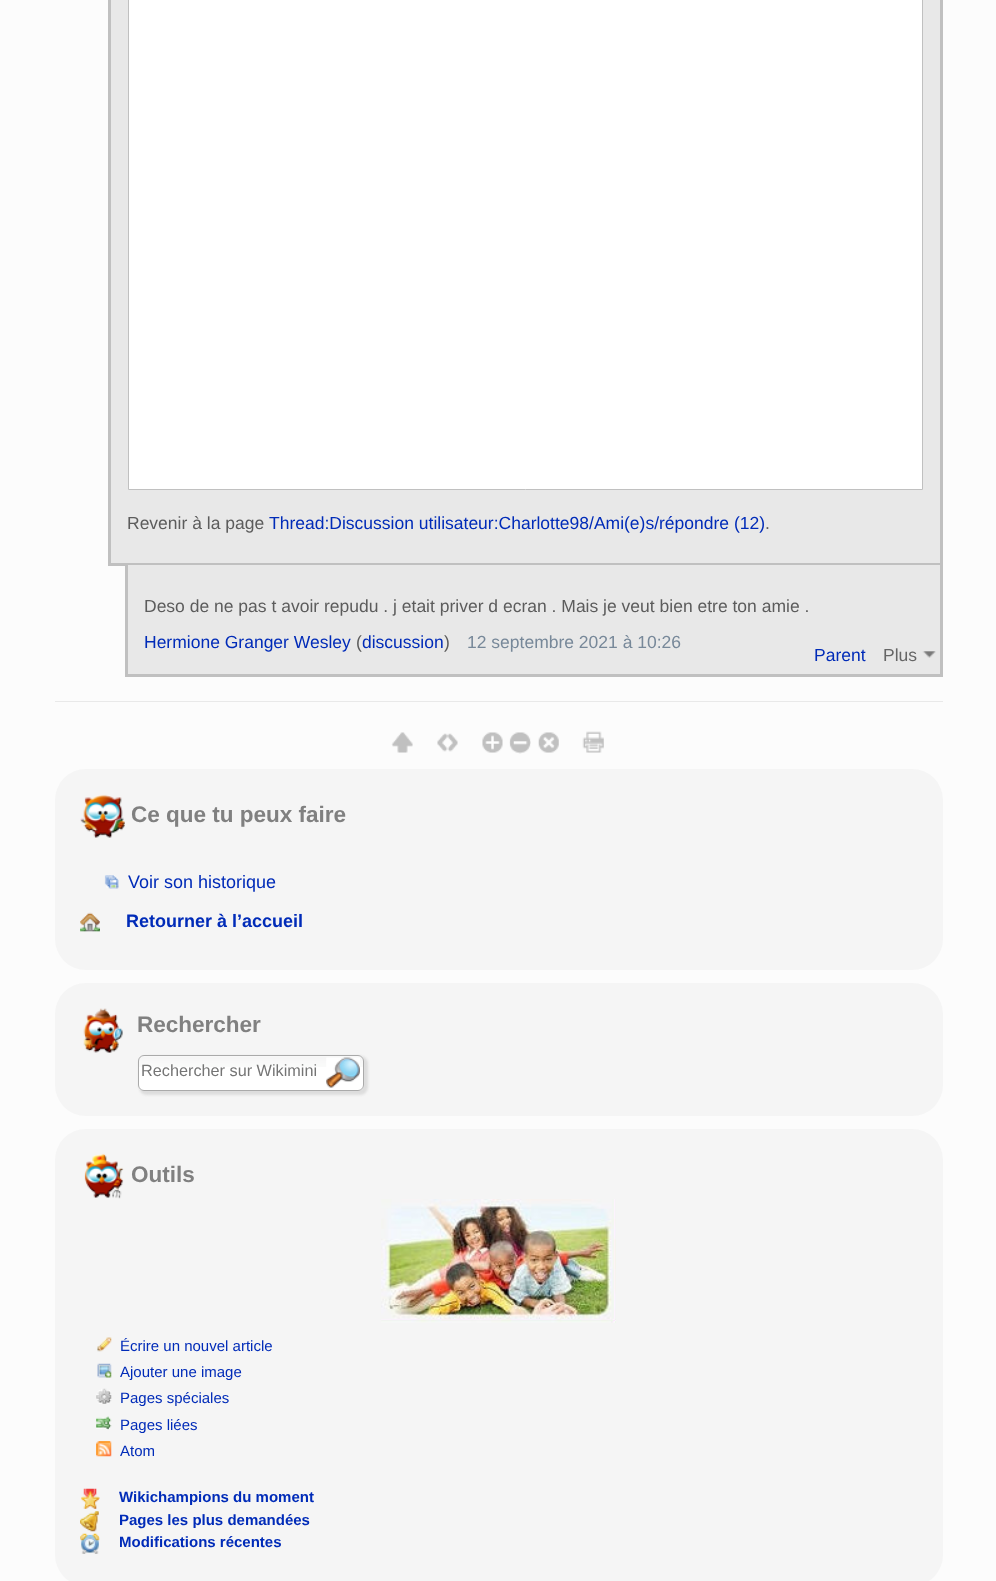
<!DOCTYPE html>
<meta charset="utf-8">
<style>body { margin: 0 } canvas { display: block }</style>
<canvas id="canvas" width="996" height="1581"></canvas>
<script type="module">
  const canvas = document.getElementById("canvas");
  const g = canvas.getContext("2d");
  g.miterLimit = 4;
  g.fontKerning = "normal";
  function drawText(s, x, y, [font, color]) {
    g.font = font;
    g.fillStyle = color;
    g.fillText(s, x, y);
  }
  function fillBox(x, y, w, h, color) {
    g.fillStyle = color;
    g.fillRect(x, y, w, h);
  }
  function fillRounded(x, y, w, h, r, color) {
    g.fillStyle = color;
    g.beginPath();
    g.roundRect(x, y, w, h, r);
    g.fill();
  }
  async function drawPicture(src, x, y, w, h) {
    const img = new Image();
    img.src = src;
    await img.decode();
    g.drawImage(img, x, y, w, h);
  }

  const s1 = ["17.5px Liberation Sans", "#5C5C5C"];
  const s2 = ["17.5px Liberation Sans", "#002BB8"];
  const s3 = ["17.5px Liberation Sans", "#778899"];
  const s4 = ["17.5px Liberation Sans", "#666666"];
  const s5 = ["bold 22.5px Liberation Sans", "#808080"];
  const s6 = ["18px Liberation Sans", "#002BB8"];
  const s7 = ["bold 18px Liberation Sans", "#002BB8"];
  const s8 = ["16.25px Liberation Sans", "#757575"];
  const s9 = ["15px Liberation Sans", "#002BB8"];
  const s10 = ["bold 15px Liberation Sans", "#002BB8"];

  fillBox(0, 0, 996, 1581, "#FCFCFC");
  fillBox(55, 701, 888, 1, "#E9E9E9");
  fillBox(111, 0, 829, 563, "#E8E8E8");
  fillBox(940, 0, 3, 565, "#C0C0C0");
  fillBox(108, 563, 835, 3, "#C0C0C0");
  fillBox(108, 0, 3, 565, "#C0C0C0");
  g.fillStyle = "#FFFFFF";
  g.beginPath();
  g.rect(128.5, -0.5, 794, 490);
  g.fill();
  g.strokeStyle = "#C0C0C0";
  g.stroke();
  drawText("Revenir à la page", 127, 529, s1);
  drawText("Thread:Discussion utilisateur:Charlotte98/Ami(e)s/répondre (12)", 269, 529, s2);
  drawText(".", 765, 529, s1);
  fillBox(128, 565, 812, 109, "#E8E8E8");
  fillBox(940, 565, 3, 111, "#C0C0C0");
  fillBox(125, 674, 818, 3, "#C0C0C0");
  fillBox(125, 565, 3, 111, "#C0C0C0");
  drawText("Deso de ne pas t avoir repudu . j etait priver d ecran . Mais je veut bien etre ton amie .", 144, 612, s1);
  drawText("Hermione Granger Wesley", 144, 648, s2);
  drawText("(", 356, 648, s1);
  drawText("discussion", 362, 648, s2);
  drawText(")", 444, 648, s1);
  drawText("12 septembre 2021 à 10:26", 467, 648, s3);
  drawText("Parent", 814, 661, s2);
  await drawPicture("pic1.png", 922, 651, 14, 7);
  drawText("Plus", 883, 661, s4);
  await drawPicture("pic2.png", 391, 732, 22, 21);
  await drawPicture("pic3.png", 437, 733, 21, 19);
  await drawPicture("pic4.png", 482, 732, 21, 21);
  await drawPicture("pic5.png", 509, 732, 22, 22);
  await drawPicture("pic6.png", 538, 732, 21, 21);
  await drawPicture("pic7.png", 582, 731, 22, 22);
  fillRounded(55, 769, 888, 201, 31, "#F5F5F5");
  await drawPicture("pic8.png", 80, 794, 45, 44);
  drawText("Ce que tu peux faire", 131, 822, s5);
  await drawPicture("pic9.png", 104, 875, 15, 14);
  drawText("Voir son historique", 128, 888, s6);
  await drawPicture("pic10.png", 80, 912, 20, 20);
  drawText("Retourner à l’accueil", 126, 927, s7);
  fillRounded(55, 983, 888, 133, 31, "#F5F5F5");
  await drawPicture("pic11.png", 83, 1008, 40, 45);
  drawText("Rechercher", 137, 1032, s5);
  g.fillStyle = "#DDDDDD";
  g.filter = "blur(1px)";
  g.beginPath();
  g.roundRect(139, 1056, 229, 39, 8);
  g.fill();
  g.filter = "none";
  fillRounded(138, 1055, 226, 36, 6, "#FFFFFF");
  await drawPicture("pic12.png", 138, 1056, 225, 11);
  g.beginPath();
  g.roundRect(138.5, 1055.5, 225, 35, 5.5);
  g.strokeStyle = "#AAAAAA";
  g.stroke();
  drawText("Rechercher sur Wikimini", 141, 1076, s8);
  await drawPicture("pic13.png", 326, 1057, 34, 31);
  fillRounded(55, 1129, 888, 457, 31, "#F5F5F5");
  await drawPicture("pic14.png", 84, 1153, 40, 46);
  drawText("Outils", 131, 1182, s5);
  await drawPicture("pic15.png", 381, 1199, 235, 124);
  await drawPicture("pic16.png", 97, 1337, 15, 15);
  drawText("Écrire un nouvel article", 120, 1351, s9);
  await drawPicture("pic17.png", 97, 1363, 15, 15);
  drawText("Ajouter une image", 120, 1377, s9);
  await drawPicture("pic18.png", 96, 1388, 16, 16);
  drawText("Pages spéciales", 120, 1403, s9);
  await drawPicture("pic19.png", 96, 1416, 16, 14);
  drawText("Pages liées", 120, 1430, s9);
  await drawPicture("pic20.png", 96, 1441, 16, 16);
  drawText("Atom", 120, 1456, s9);
  await drawPicture("pic21.png", 81, 1488, 19, 21);
  drawText("Wikichampions du moment", 119, 1502, s10);
  await drawPicture("pic22.png", 80, 1511, 19, 21);
  drawText("Pages les plus demandées", 119, 1525, s10);
  await drawPicture("pic23.png", 80, 1533, 20, 21);
  drawText("Modifications récentes", 119, 1547, s10);
</script>
